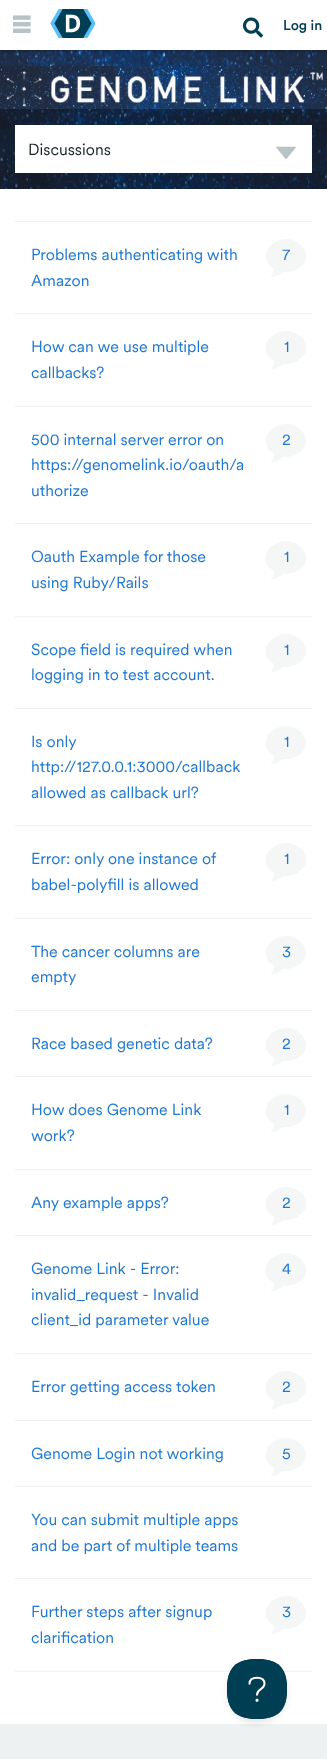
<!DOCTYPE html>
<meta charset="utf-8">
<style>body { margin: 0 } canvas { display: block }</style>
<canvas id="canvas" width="327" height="1759"></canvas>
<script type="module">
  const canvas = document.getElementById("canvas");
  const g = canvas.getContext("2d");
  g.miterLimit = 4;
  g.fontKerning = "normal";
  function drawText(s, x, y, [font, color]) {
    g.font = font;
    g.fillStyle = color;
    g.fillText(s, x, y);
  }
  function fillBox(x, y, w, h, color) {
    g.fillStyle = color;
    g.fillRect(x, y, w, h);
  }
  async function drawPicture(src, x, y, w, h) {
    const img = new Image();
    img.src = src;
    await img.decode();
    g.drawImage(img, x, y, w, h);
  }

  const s1 = ["500 14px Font", "#003E54"];
  const s2 = ["16px Font", "#192325"];
  const s3 = ["16px Font", "#1F78D1"];

  fillBox(0, 0, 327, 1759, "#FFFFFF");
  await drawPicture("pic4.png", 0, 50, 327, 139);
  g.save();
  g.beginPath();
  g.rect(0, 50, 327, 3);
  g.clip();
  g.fillStyle = "rgba(0, 0, 0, 0.3)";
  g.filter = "blur(1.5px)";
  g.beginPath();
  g.rect(0, 1, 327, 50);
  g.fill();
  g.filter = "none";
  g.restore();
  await drawPicture("pic1.png", 13, 15, 18, 18);
  await drawPicture("pic2.png", 50, 9, 45, 29);
  await drawPicture("pic3.png", 243, 17, 20, 21);
  drawText("Log in", 283, 30, s1);
  await drawPicture("pic5.png", 0, 66, 327, 43);
  fillBox(0, 109, 327, 80, "rgba(0, 0, 0, 0.3)");
  fillBox(15, 125, 297, 48, "#FFFFFF");
  drawText("Discussions", 28, 155, s2);
  await drawPicture("pic6.png", 276, 146, 20, 14);
  fillBox(15, 221, 297, 1, "#EDF1F2");
  fillBox(15, 313, 297, 1, "#EDF1F2");
  drawText("Problems authenticating with", 31, 260, s3);
  drawText("Amazon", 31, 286, s3);
  g.fillStyle = "#F5F7F7";
  g.beginPath();
  g.moveTo(300, 244);
  g.bezierCurveTo(303, 247, 305, 250, 306, 254);
  g.bezierCurveTo(307, 267, 293, 273, 283, 272);
  g.lineTo(277, 276);
  g.lineTo(273, 277);
  g.bezierCurveTo(269, 277, 272, 275, 273, 274);
  g.lineTo(274, 269);
  g.bezierCurveTo(251, 255, 280, 228, 300, 244);
  g.closePath();
  g.fill();
  drawText("7", 282, 260, s3);
  fillBox(15, 406, 297, 1, "#EDF1F2");
  drawText("How can we use multiple", 31, 352, s3);
  drawText("callbacks?", 31, 378, s3);
  g.fillStyle = "#F5F7F7";
  g.beginPath();
  g.moveTo(300, 336);
  g.bezierCurveTo(303, 339, 305, 342, 306, 346);
  g.bezierCurveTo(307, 359, 293, 365, 283, 364);
  g.lineTo(277, 368);
  g.lineTo(273, 369);
  g.bezierCurveTo(269, 369, 272, 367, 273, 366);
  g.lineTo(274, 361);
  g.bezierCurveTo(251, 347, 280, 320, 300, 336);
  g.closePath();
  g.fill();
  drawText("1", 284, 352, s3);
  fillBox(15, 523, 297, 1, "#EDF1F2");
  drawText("500 internal server error on", 31, 445, s3);
  drawText("https://genomelink.io/oauth/a", 31, 470, s3);
  drawText("uthorize", 31, 496, s3);
  g.fillStyle = "#F5F7F7";
  g.beginPath();
  g.moveTo(300, 429);
  g.bezierCurveTo(303, 432, 305, 435, 306, 439);
  g.bezierCurveTo(307, 452, 293, 458, 283, 457);
  g.lineTo(277, 461);
  g.lineTo(273, 462);
  g.bezierCurveTo(269, 462, 272, 460, 273, 459);
  g.lineTo(274, 454);
  g.bezierCurveTo(251, 440, 280, 413, 300, 429);
  g.closePath();
  g.fill();
  drawText("2", 282, 445, s3);
  fillBox(15, 616, 297, 1, "#EDF1F2");
  drawText("Oauth Example for those", 31, 562, s3);
  drawText("using Ruby/Rails", 31, 588, s3);
  g.fillStyle = "#F5F7F7";
  g.beginPath();
  g.moveTo(300, 546);
  g.bezierCurveTo(303, 549, 305, 552, 306, 556);
  g.bezierCurveTo(307, 569, 293, 575, 283, 574);
  g.lineTo(277, 578);
  g.lineTo(273, 579);
  g.bezierCurveTo(269, 579, 272, 577, 273, 576);
  g.lineTo(274, 571);
  g.bezierCurveTo(251, 557, 280, 530, 300, 546);
  g.closePath();
  g.fill();
  drawText("1", 284, 562, s3);
  fillBox(15, 708, 297, 1, "#EDF1F2");
  drawText("Scope field is required when", 31, 655, s3);
  drawText("logging in to test account.", 31, 680, s3);
  g.fillStyle = "#F5F7F7";
  g.beginPath();
  g.moveTo(300, 639);
  g.bezierCurveTo(303, 642, 305, 645, 306, 649);
  g.bezierCurveTo(307, 662, 293, 668, 283, 667);
  g.lineTo(277, 671);
  g.lineTo(273, 672);
  g.bezierCurveTo(269, 672, 272, 670, 273, 669);
  g.lineTo(274, 664);
  g.bezierCurveTo(251, 650, 280, 623, 300, 639);
  g.closePath();
  g.fill();
  drawText("1", 284, 655, s3);
  fillBox(15, 825, 297, 1, "#EDF1F2");
  drawText("Is only", 31, 747, s3);
  drawText("http://127.0.0.1:3000/callback", 31, 772, s3);
  drawText("allowed as callback url?", 31, 798, s3);
  g.fillStyle = "#F5F7F7";
  g.beginPath();
  g.moveTo(300, 731);
  g.bezierCurveTo(303, 734, 305, 737, 306, 741);
  g.bezierCurveTo(307, 754, 293, 760, 283, 759);
  g.lineTo(277, 763);
  g.lineTo(273, 764);
  g.bezierCurveTo(269, 764, 272, 762, 273, 761);
  g.lineTo(274, 756);
  g.bezierCurveTo(251, 742, 280, 715, 300, 731);
  g.closePath();
  g.fill();
  drawText("1", 284, 747, s3);
  fillBox(15, 918, 297, 1, "#EDF1F2");
  drawText("Error: only one instance of", 31, 864, s3);
  drawText("babel-polyfill is allowed", 31, 890, s3);
  g.fillStyle = "#F5F7F7";
  g.beginPath();
  g.moveTo(300, 848);
  g.bezierCurveTo(303, 851, 305, 854, 306, 858);
  g.bezierCurveTo(307, 871, 293, 877, 283, 876);
  g.lineTo(277, 880);
  g.lineTo(273, 881);
  g.bezierCurveTo(269, 881, 272, 879, 273, 878);
  g.lineTo(274, 873);
  g.bezierCurveTo(251, 859, 280, 832, 300, 848);
  g.closePath();
  g.fill();
  drawText("1", 284, 864, s3);
  fillBox(15, 1010, 297, 1, "#EDF1F2");
  drawText("The cancer columns are", 31, 957, s3);
  drawText("empty", 31, 982, s3);
  g.fillStyle = "#F5F7F7";
  g.beginPath();
  g.moveTo(300, 941);
  g.bezierCurveTo(303, 944, 305, 947, 306, 951);
  g.bezierCurveTo(307, 964, 293, 970, 283, 969);
  g.lineTo(277, 973);
  g.lineTo(273, 974);
  g.bezierCurveTo(269, 974, 272, 972, 273, 971);
  g.lineTo(274, 966);
  g.bezierCurveTo(251, 952, 280, 925, 300, 941);
  g.closePath();
  g.fill();
  drawText("3", 282, 957, s3);
  fillBox(15, 1076, 297, 1, "#EDF1F2");
  drawText("Race based genetic data?", 31, 1049, s3);
  g.fillStyle = "#F5F7F7";
  g.beginPath();
  g.moveTo(300, 1033);
  g.bezierCurveTo(303, 1036, 305, 1039, 306, 1043);
  g.bezierCurveTo(307, 1056, 293, 1062, 283, 1061);
  g.lineTo(277, 1065);
  g.lineTo(273, 1066);
  g.bezierCurveTo(269, 1066, 272, 1064, 273, 1063);
  g.lineTo(274, 1058);
  g.bezierCurveTo(251, 1044, 280, 1017, 300, 1033);
  g.closePath();
  g.fill();
  drawText("2", 282, 1049, s3);
  fillBox(15, 1169, 297, 1, "#EDF1F2");
  drawText("How does Genome Link", 31, 1115, s3);
  drawText("work?", 31, 1141, s3);
  g.fillStyle = "#F5F7F7";
  g.beginPath();
  g.moveTo(300, 1099);
  g.bezierCurveTo(303, 1102, 305, 1105, 306, 1109);
  g.bezierCurveTo(307, 1122, 293, 1128, 283, 1127);
  g.lineTo(277, 1131);
  g.lineTo(273, 1132);
  g.bezierCurveTo(269, 1132, 272, 1130, 273, 1129);
  g.lineTo(274, 1124);
  g.bezierCurveTo(251, 1110, 280, 1083, 300, 1099);
  g.closePath();
  g.fill();
  drawText("1", 284, 1115, s3);
  fillBox(15, 1235, 297, 1, "#EDF1F2");
  drawText("Any example apps?", 31, 1208, s3);
  g.fillStyle = "#F5F7F7";
  g.beginPath();
  g.moveTo(300, 1192);
  g.bezierCurveTo(303, 1195, 305, 1198, 306, 1202);
  g.bezierCurveTo(307, 1215, 293, 1221, 283, 1220);
  g.lineTo(277, 1224);
  g.lineTo(273, 1225);
  g.bezierCurveTo(269, 1225, 272, 1223, 273, 1222);
  g.lineTo(274, 1217);
  g.bezierCurveTo(251, 1203, 280, 1176, 300, 1192);
  g.closePath();
  g.fill();
  drawText("2", 282, 1208, s3);
  fillBox(15, 1353, 297, 1, "#EDF1F2");
  drawText("Genome Link - Error:", 31, 1274, s3);
  drawText("invalid_request - Invalid", 31, 1300, s3);
  drawText("client_id parameter value", 31, 1325, s3);
  g.fillStyle = "#F5F7F7";
  g.beginPath();
  g.moveTo(300, 1258);
  g.bezierCurveTo(303, 1261, 305, 1264, 306, 1268);
  g.bezierCurveTo(307, 1281, 293, 1287, 283, 1286);
  g.lineTo(277, 1290);
  g.lineTo(273, 1291);
  g.bezierCurveTo(269, 1291, 272, 1289, 273, 1288);
  g.lineTo(274, 1283);
  g.bezierCurveTo(251, 1269, 280, 1242, 300, 1258);
  g.closePath();
  g.fill();
  drawText("4", 282, 1274, s3);
  fillBox(15, 1420, 297, 1, "#EDF1F2");
  drawText("Error getting access token", 31, 1392, s3);
  g.fillStyle = "#F5F7F7";
  g.beginPath();
  g.moveTo(300, 1376);
  g.bezierCurveTo(303, 1379, 305, 1382, 306, 1386);
  g.bezierCurveTo(307, 1399, 293, 1405, 283, 1404);
  g.lineTo(277, 1408);
  g.lineTo(273, 1409);
  g.bezierCurveTo(269, 1409, 272, 1407, 273, 1406);
  g.lineTo(274, 1401);
  g.bezierCurveTo(251, 1387, 280, 1360, 300, 1376);
  g.closePath();
  g.fill();
  drawText("2", 282, 1392, s3);
  fillBox(15, 1486, 297, 1, "#EDF1F2");
  drawText("Genome Login not working", 31, 1459, s3);
  g.fillStyle = "#F5F7F7";
  g.beginPath();
  g.moveTo(300, 1443);
  g.bezierCurveTo(303, 1446, 305, 1449, 306, 1453);
  g.bezierCurveTo(307, 1466, 293, 1472, 283, 1471);
  g.lineTo(277, 1475);
  g.lineTo(273, 1476);
  g.bezierCurveTo(269, 1476, 272, 1474, 273, 1473);
  g.lineTo(274, 1468);
  g.bezierCurveTo(251, 1454, 280, 1427, 300, 1443);
  g.closePath();
  g.fill();
  drawText("5", 282, 1459, s3);
  fillBox(15, 1578, 297, 1, "#EDF1F2");
  drawText("You can submit multiple apps", 31, 1525, s3);
  drawText("and be part of multiple teams", 31, 1551, s3);
  fillBox(15, 1671, 297, 1, "#EDF1F2");
  drawText("Further steps after signup", 31, 1617, s3);
  drawText("clarification", 31, 1643, s3);
  g.fillStyle = "#F5F7F7";
  g.beginPath();
  g.moveTo(300, 1601);
  g.bezierCurveTo(303, 1604, 305, 1607, 306, 1611);
  g.bezierCurveTo(307, 1624, 293, 1630, 283, 1629);
  g.lineTo(277, 1633);
  g.lineTo(273, 1634);
  g.bezierCurveTo(269, 1634, 272, 1632, 273, 1631);
  g.lineTo(274, 1626);
  g.bezierCurveTo(251, 1612, 280, 1585, 300, 1601);
  g.closePath();
  g.fill();
  drawText("3", 282, 1617, s3);
  fillBox(0, 1724, 327, 35, "#EDF1F2");
  g.fillStyle = "rgba(0, 0, 0, 0.1)";
  g.filter = "blur(3.5px)";
  g.beginPath();
  g.roundRect(227, 1663, 60, 60, 30);
  g.fill();
  g.filter = "none";
  await drawPicture("pic7.png", 227, 1659, 60, 60);
</script>
